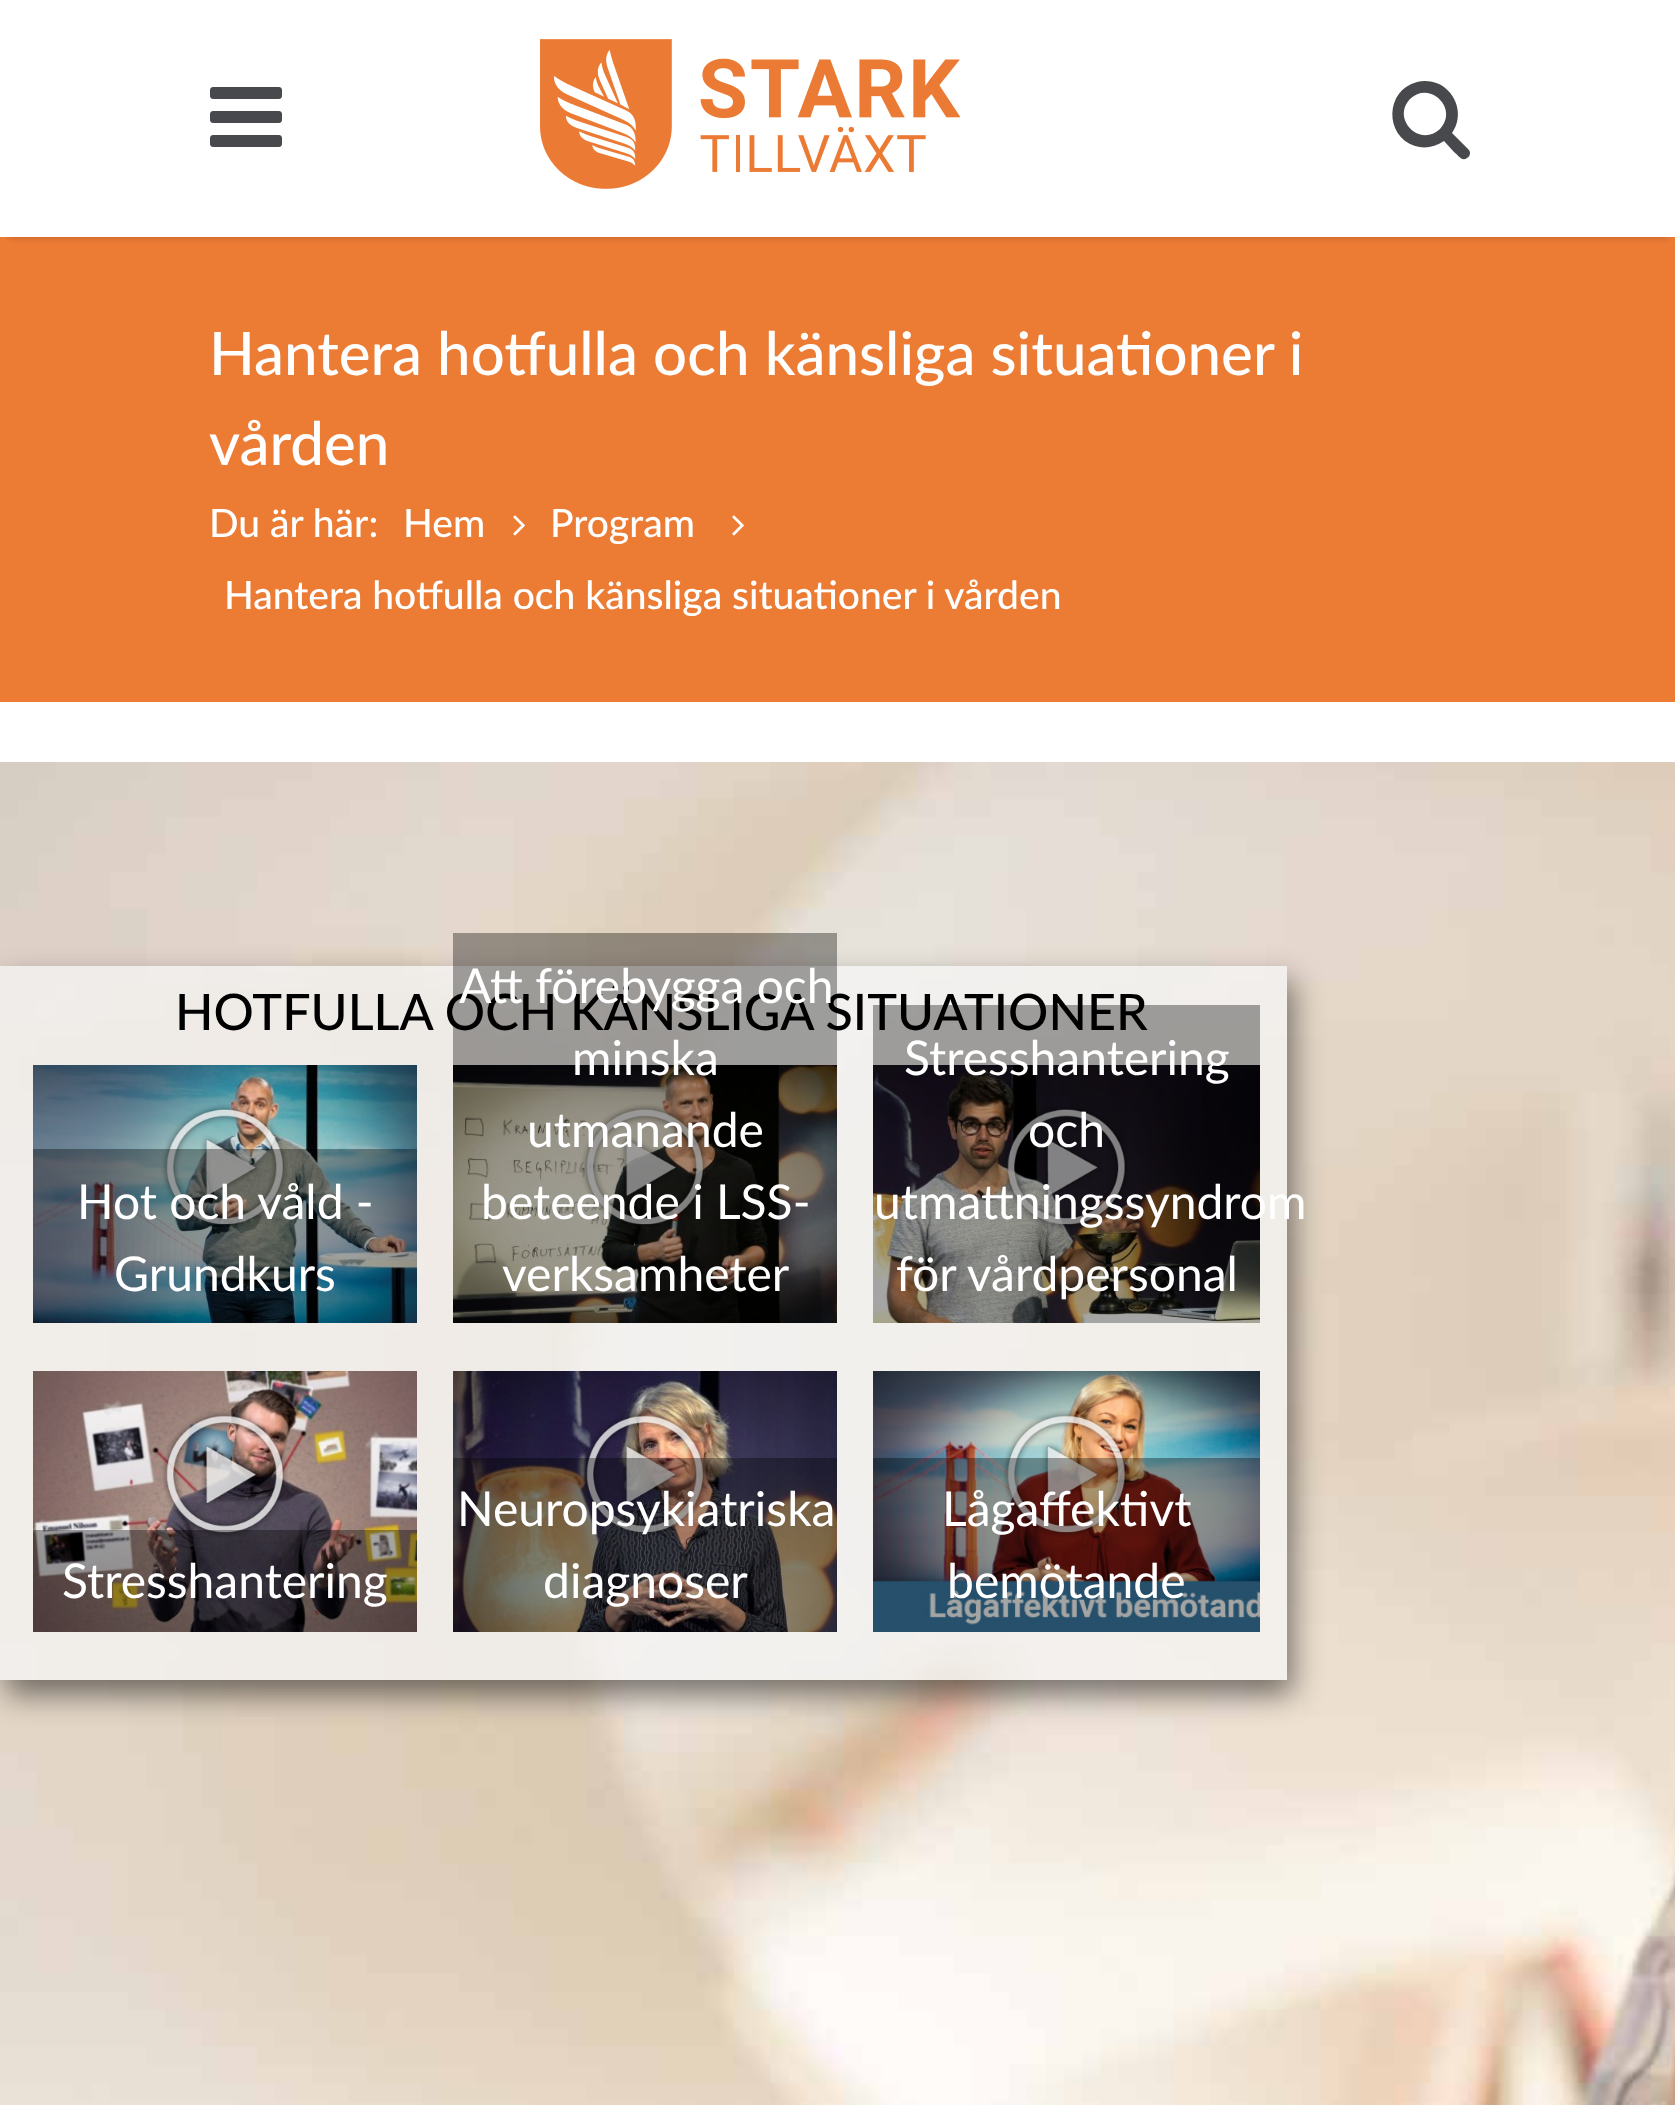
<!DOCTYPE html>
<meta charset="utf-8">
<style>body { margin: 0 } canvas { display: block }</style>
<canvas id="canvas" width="1675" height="2105"></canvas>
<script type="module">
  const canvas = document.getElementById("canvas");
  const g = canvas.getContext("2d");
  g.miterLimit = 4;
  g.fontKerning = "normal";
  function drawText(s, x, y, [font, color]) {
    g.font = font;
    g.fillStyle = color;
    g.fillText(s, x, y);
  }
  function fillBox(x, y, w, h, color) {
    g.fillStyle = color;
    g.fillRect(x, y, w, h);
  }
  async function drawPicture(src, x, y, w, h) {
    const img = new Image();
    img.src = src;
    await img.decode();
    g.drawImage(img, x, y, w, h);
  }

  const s1 = ["500 60px Lato", "#FFFFFF"];
  const s2 = ["500 39px Lato", "#FFFFFF"];
  const s3 = ["500 50.3px Lato", "#000000"];
  const s4 = ["48px Lato", "#FFFFFF"];

  fillBox(0, 0, 1675, 2105, "#FFFFFF");
  fillBox(0, 237, 1675, 465, "#EC7B34");
  g.save();
  g.beginPath();
  g.rect(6, 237, 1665, 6);
  g.clip();
  g.fillStyle = "rgba(0, 0, 0, 0.2)";
  g.filter = "blur(4.5px)";
  g.beginPath();
  g.rect(9, 18, 1659, 219);
  g.fill();
  g.filter = "none";
  g.restore();
  await drawPicture("pic1.png", 540, 39, 420, 150);
  await drawPicture("pic2.png", 210, 87, 72, 60);
  g.fillStyle = "#47494C";
  g.beginPath();
  g.moveTo(1440, 129);
  g.bezierCurveTo(1459, 109, 1430, 80, 1410, 99);
  g.bezierCurveTo(1391, 119, 1420, 148, 1440, 129);
  g.closePath();
  g.moveTo(1470, 153);
  g.bezierCurveTo(1470, 155, 1469, 157, 1467, 158);
  g.bezierCurveTo(1462, 162, 1458, 155, 1454, 152);
  g.lineTo(1444, 141);
  g.bezierCurveTo(1435, 147, 1425, 149, 1415, 146);
  g.bezierCurveTo(1384, 136, 1385, 90, 1417, 82);
  g.bezierCurveTo(1424, 80, 1432, 81, 1439, 84);
  g.bezierCurveTo(1457, 93, 1464, 116, 1452, 133);
  g.lineTo(1468, 149);
  g.bezierCurveTo(1469, 150, 1470, 151, 1470, 153);
  g.closePath();
  g.fill();
  drawText("Hantera hotfulla och känsliga situationer i", 209, 375, s1);
  drawText("vården", 209, 465, s1);
  drawText("Du är här:", 209, 537, s2);
  drawText("Hem", 403, 537, s2);
  await drawPicture("pic3.png", 513, 515, 12, 21);
  drawText("Program", 550, 537, s2);
  await drawPicture("pic3.png", 732, 515, 12, 21);
  drawText("Hantera hotfulla och känsliga situationer i vården", 224, 609, s2);
  await drawPicture("pic4.png", 0, 762, 1675, 1343);
  g.save();
  g.beginPath();
  g.moveTo(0, 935);
  g.lineTo(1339, 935);
  g.lineTo(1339, 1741);
  g.lineTo(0, 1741);
  g.closePath();
  g.moveTo(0, 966);
  g.lineTo(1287, 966);
  g.lineTo(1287, 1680);
  g.lineTo(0, 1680);
  g.closePath();
  g.clip("evenodd");
  g.fillStyle = "rgba(0, 0, 0, 0.5)";
  g.filter = "blur(15px)";
  g.beginPath();
  g.rect(6, 981, 1287, 714);
  g.fill();
  g.filter = "none";
  g.restore();
  fillBox(0, 966, 1287, 714, "rgba(245, 245, 245, 0.75)");
  await drawPicture("pic5.png", 453, 1065, 384, 258);
  await drawPicture("pic6.png", 581, 1104, 127, 123);
  drawText("HOTFULLA OCH KÄNSLIGA SITUATIONER", 175, 1030, s3);
  fillBox(453, 933, 384, 390, "rgba(0, 0, 0, 0.35)");
  drawText("Att förebygga och", 459, 1003, s4);
  drawText("minska", 572, 1075, s4);
  drawText("utmanande", 527, 1147, s4);
  drawText("beteende i LSS-", 481, 1219, s4);
  drawText("verksamheter", 502, 1291, s4);
  await drawPicture("pic7.png", 33, 1065, 384, 258);
  await drawPicture("pic8.png", 161, 1104, 127, 125);
  fillBox(33, 1149, 384, 174, "rgba(0, 0, 0, 0.35)");
  drawText("Hot och våld -", 77, 1219, s4);
  drawText("Grundkurs", 114, 1291, s4);
  await drawPicture("pic9.png", 873, 1065, 387, 258);
  await drawPicture("pic10.png", 1002, 1107, 126, 123);
  fillBox(873, 1005, 387, 318, "rgba(0, 0, 0, 0.35)");
  drawText("Stresshantering", 904, 1075, s4);
  drawText("och", 1028, 1147, s4);
  drawText("utmattningssyndrom", 874, 1219, s4);
  drawText("för vårdpersonal", 896, 1291, s4);
  await drawPicture("pic11.png", 33, 1371, 384, 261);
  await drawPicture("pic12.png", 162, 1411, 126, 126);
  fillBox(33, 1530, 384, 102, "rgba(0, 0, 0, 0.35)");
  drawText("Stresshantering", 62, 1598, s4);
  await drawPicture("pic13.png", 453, 1371, 384, 261);
  await drawPicture("pic14.png", 582, 1411, 126, 126);
  fillBox(453, 1458, 384, 174, "rgba(0, 0, 0, 0.35)");
  drawText("Neuropsykiatriska", 457, 1526, s4);
  drawText("diagnoser", 543, 1598, s4);
  await drawPicture("pic15.png", 873, 1371, 387, 261);
  await drawPicture("pic16.png", 1002, 1410, 128, 128);
  fillBox(873, 1458, 387, 174, "rgba(0, 0, 0, 0.35)");
  drawText("Lågaffektivt", 942, 1526, s4);
  drawText("bemötande", 947, 1598, s4);
</script>
